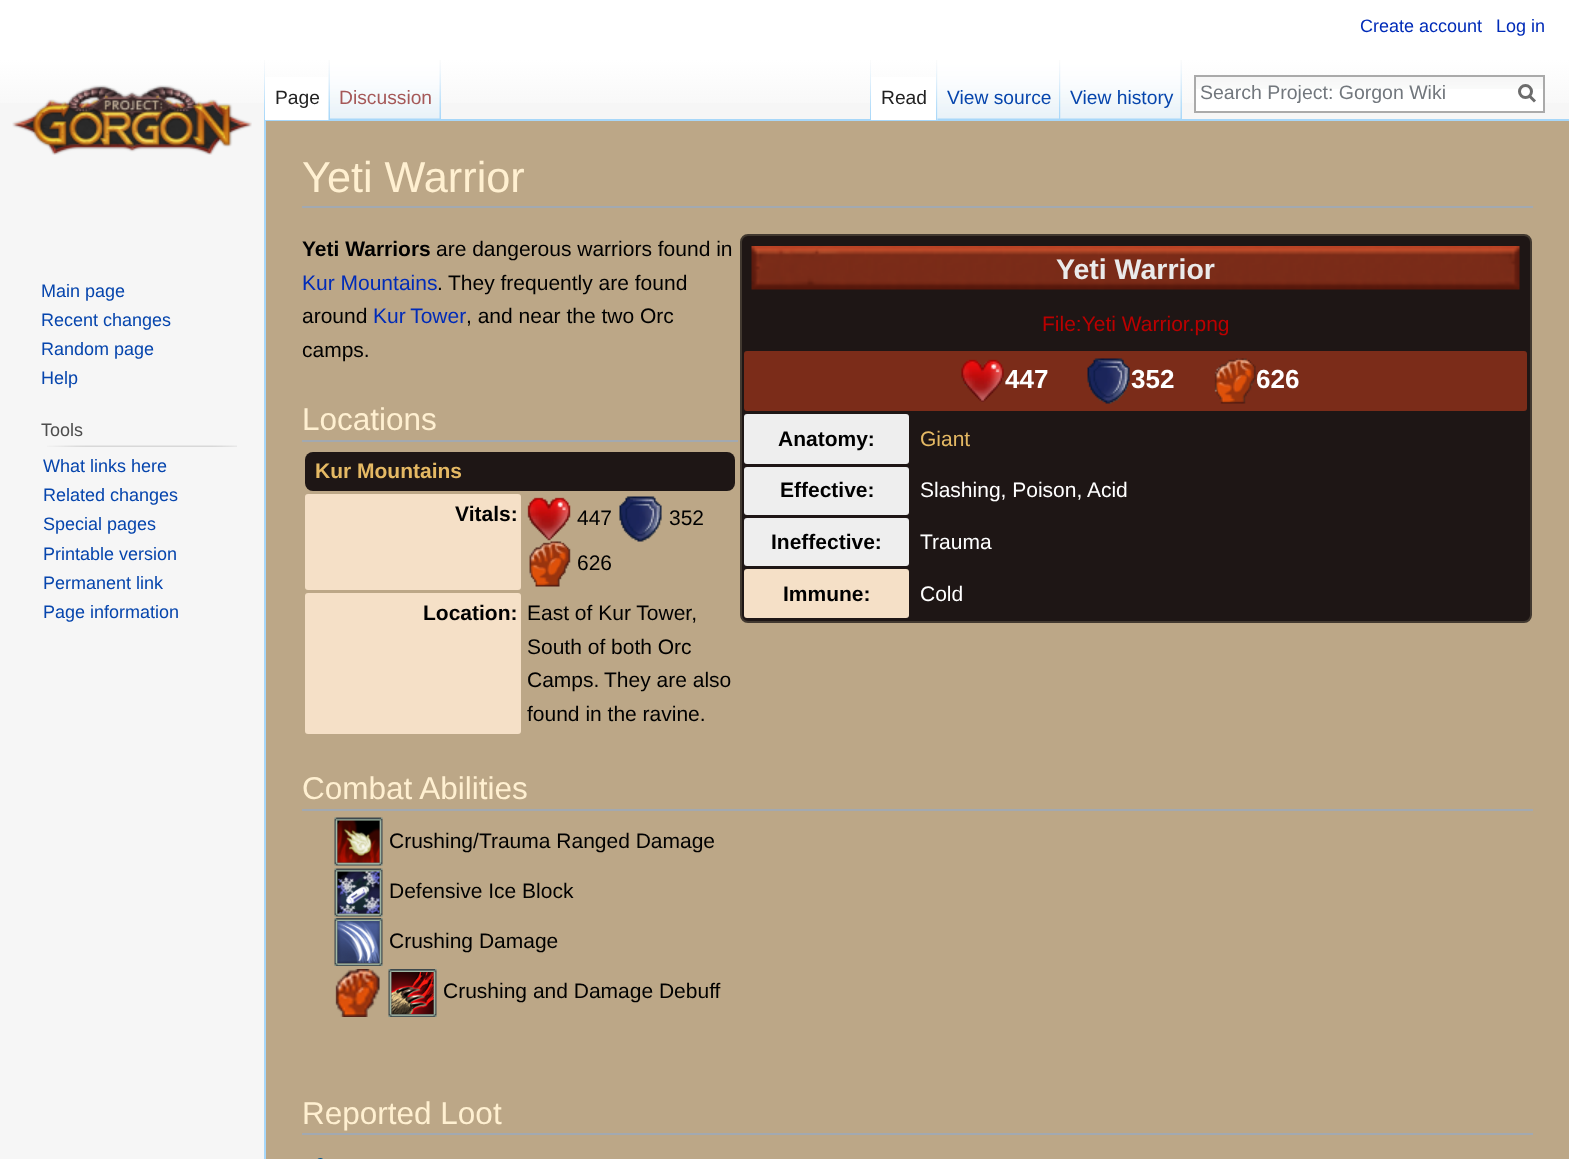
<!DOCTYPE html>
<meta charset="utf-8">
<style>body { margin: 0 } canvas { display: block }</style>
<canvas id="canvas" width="1569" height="1159"></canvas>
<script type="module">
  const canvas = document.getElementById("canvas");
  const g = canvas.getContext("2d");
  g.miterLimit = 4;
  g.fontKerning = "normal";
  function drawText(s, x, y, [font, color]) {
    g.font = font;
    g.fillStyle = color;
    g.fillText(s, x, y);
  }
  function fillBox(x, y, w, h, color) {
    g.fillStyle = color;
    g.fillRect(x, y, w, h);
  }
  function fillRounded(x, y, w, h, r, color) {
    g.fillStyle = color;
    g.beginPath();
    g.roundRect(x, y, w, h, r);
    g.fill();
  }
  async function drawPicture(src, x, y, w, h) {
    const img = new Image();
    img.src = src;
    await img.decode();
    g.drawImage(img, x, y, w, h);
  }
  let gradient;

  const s1 = ["18px Liberation Sans", "#002BB8"];
  const s2 = ["19.25px Liberation Sans", "#222222"];
  const s3 = ["19.25px Liberation Sans", "#A55858"];
  const s4 = ["19.25px Liberation Sans", "#0645AD"];
  const s5 = ["19.5px Liberation Sans", "#72777D"];
  const s6 = ["18px Liberation Sans", "#0645AD"];
  const s7 = ["18px Liberation Sans", "#4D4D4D"];
  const s8 = ["43.25px Liberation Sans", "#FFF0D1"];
  const s9 = ["bold 21px Liberation Sans", "#000000"];
  const s10 = ["21px Liberation Sans", "#000000"];
  const s11 = ["21px Liberation Sans", "#002BB8"];
  const s12 = ["bold 28.5px Liberation Sans", "#EAEAEA"];
  const s13 = ["21px Liberation Sans", "#BA0000"];
  const s14 = ["bold 26px Liberation Sans", "#FFFFFF"];
  const s15 = ["21px Liberation Sans", "#E5B964"];
  const s16 = ["21px Liberation Sans", "#FFFFFF"];
  const s17 = ["31.5px Liberation Sans", "#FFF0D1"];
  const s18 = ["bold 21px Liberation Sans", "#E5B964"];

  fillBox(0, 0, 1569, 1159, "#F6F6F6");
  gradient = g.createLinearGradient(785, 0, 785, 120);
  gradient.addColorStop(0.5, "#FFFFFF");
  gradient.addColorStop(1, "#F6F6F6");
  g.fillStyle = gradient;
  g.fillRect(0, 0, 1569, 103);
  drawText("Create account", 1360, 32, s1);
  drawText("Log in", 1496, 32, s1);
  await drawPicture("pic1.png", 264, 60, 1, 59);
  fillBox(264, 119, 1305, 2, "#A7D7F9");
  fillBox(264, 119, 2, 1040, "#A7D7F9");
  fillBox(265, 77, 64, 43, "#FFFFFF");
  await drawPicture("pic2.png", 328, 60, 2, 60);
  drawText("Page", 275, 104, s2);
  await drawPicture("pic3.png", 330, 60, 111, 60);
  await drawPicture("pic4.png", 439, 60, 2, 59);
  drawText("Discussion", 339, 104, s3);
  await drawPicture("pic1.png", 870, 60, 1, 59);
  fillBox(871, 77, 67, 43, "#FFFFFF");
  await drawPicture("pic5.png", 936, 60, 2, 60);
  drawText("Read", 881, 104, s2);
  await drawPicture("pic6.png", 937, 60, 124, 60);
  await drawPicture("pic7.png", 1059, 60, 2, 60);
  drawText("View source", 947, 104, s4);
  await drawPicture("pic8.png", 1060, 60, 122, 60);
  await drawPicture("pic4.png", 1180, 60, 2, 59);
  drawText("View history", 1070, 104, s4);
  fillBox(1196, 89, 347, 22, "#FFFFFF");
  await drawPicture("pic9.png", 1196, 77, 347, 12);
  g.strokeStyle = "#AAAAAA";
  g.lineWidth = 2;
  g.strokeRect(1195, 76, 349, 36);
  drawText("Search Project: Gorgon Wiki", 1200, 99, s5);
  g.beginPath();
  g.moveTo(1535, 101.5);
  g.lineTo(1529, 95.5);
  g.strokeStyle = "#6C6C6C";
  g.lineWidth = 3;
  g.stroke();
  g.beginPath();
  g.arc(1525.5, 91.5, 6, 0, Math.PI * 2);
  g.stroke();
  await drawPicture("pic10.png", 12, 85, 240, 70);
  drawText("Main page", 41, 297, s6);
  drawText("Recent changes", 41, 326, s6);
  drawText("Random page", 41, 355, s6);
  drawText("Help", 41, 384, s6);
  drawText("Tools", 41, 436, s7);
  await drawPicture("pic11.png", 47, 445, 190, 2);
  drawText("What links here", 43, 472, s6);
  drawText("Related changes", 43, 501, s6);
  drawText("Special pages", 43, 530, s6);
  drawText("Printable version", 43, 560, s6);
  drawText("Permanent link", 43, 589, s6);
  drawText("Page information", 43, 618, s6);
  fillBox(266, 121, 1303, 1038, "#BCA787");
  fillBox(302, 206, 1231, 2, "#A2A9B1");
  drawText("Yeti Warrior", 302, 192, s8);
  drawText("Yeti Warriors", 302, 256, s9);
  drawText("are dangerous warriors found in", 436, 256, s10);
  drawText("Kur Mountains", 302, 290, s11);
  drawText(".", 437, 290, s10);
  drawText("They frequently are found", 448, 290, s10);
  g.fillStyle = "#1E1615";
  g.beginPath();
  g.roundRect(741, 235, 790, 387, 7);
  g.fill();
  g.strokeStyle = "#423930";
  g.lineWidth = 2;
  g.stroke();
  await drawPicture("pic12.png", 751, 246, 769, 44);
  drawText("Yeti Warrior", 1056, 279, s12);
  drawText("File:Yeti Warrior.png", 1042, 331, s13);
  fillRounded(744, 351, 783, 60, 3, "#7B2C19");
  await drawPicture("pic13.png", 961, 359, 43, 43);
  drawText("447", 1005, 388, s14);
  await drawPicture("pic14.png", 1087, 358, 43, 46);
  drawText("352", 1131, 388, s14);
  await drawPicture("pic15.png", 1214, 358, 42, 46);
  drawText("626", 1256, 388, s14);
  fillRounded(744, 414, 165, 50, 3, "#EEEEEE");
  drawText("Anatomy:", 778, 446, s9);
  drawText("Giant", 920, 446, s15);
  fillRounded(744, 467, 165, 48, 3, "#EEEEEE");
  drawText("Effective:", 780, 497, s9);
  drawText("Slashing, Poison, Acid", 920, 497, s16);
  fillRounded(744, 518, 165, 48, 3, "#EEEEEE");
  drawText("Ineffective:", 771, 549, s9);
  drawText("Trauma", 920, 549, s16);
  fillRounded(744, 569, 165, 49, 3, "#F5E0C7");
  drawText("Immune:", 783, 601, s9);
  drawText("Cold", 920, 601, s16);
  drawText("around", 302, 323, s10);
  g.wordSpacing = "-1px";
  drawText("Kur Tower", 373, 323, s11);
  g.wordSpacing = "0px";
  drawText(", and near the two Orc", 466, 323, s10);
  drawText("camps.", 302, 357, s10);
  fillBox(302, 440, 436, 2, "#A2A9B1");
  drawText("Locations", 302, 430, s17);
  fillRounded(305, 452, 430, 39, 8, "#1E1615");
  drawText("Kur Mountains", 315, 478, s18);
  fillRounded(305, 494, 216, 96, 3, "#F5E0C7");
  drawText("Vitals:", 455, 521, s9);
  await drawPicture("pic16.png", 527, 497, 44, 44);
  drawText("447", 577, 525, s10);
  await drawPicture("pic17.png", 619, 496, 43, 46);
  drawText("352", 669, 525, s10);
  await drawPicture("pic18.png", 529, 541, 42, 46);
  drawText("626", 577, 570, s10);
  fillRounded(305, 593, 216, 141, 3, "#F5E0C7");
  drawText("Location:", 423, 620, s9);
  drawText("East of Kur Tower,", 527, 620, s10);
  drawText("South of both Orc", 527, 654, s10);
  drawText("Camps.", 527, 687, s10);
  drawText("They are also", 604, 687, s10);
  drawText("found in the ravine.", 527, 721, s10);
  fillBox(302, 809, 1231, 2, "#A2A9B1");
  drawText("Combat Abilities", 302, 799, s17);
  await drawPicture("pic19.png", 334, 817, 49, 49);
  drawText("Crushing/Trauma Ranged Damage", 389, 848, s10);
  await drawPicture("pic20.png", 334, 868, 49, 49);
  drawText("Defensive Ice Block", 389, 898, s10);
  await drawPicture("pic21.png", 334, 918, 49, 48);
  drawText("Crushing Damage", 389, 948, s10);
  await drawPicture("pic22.png", 335, 969, 45, 48);
  await drawPicture("pic23.png", 388, 969, 49, 48);
  drawText("Crushing and Damage Debuff", 443, 998, s10);
  fillBox(302, 1133, 1231, 2, "#A2A9B1");
  drawText("Reported Loot", 302, 1124, s17);
  await drawPicture("pic24.png", 317, 1158, 6, 1);
</script>
